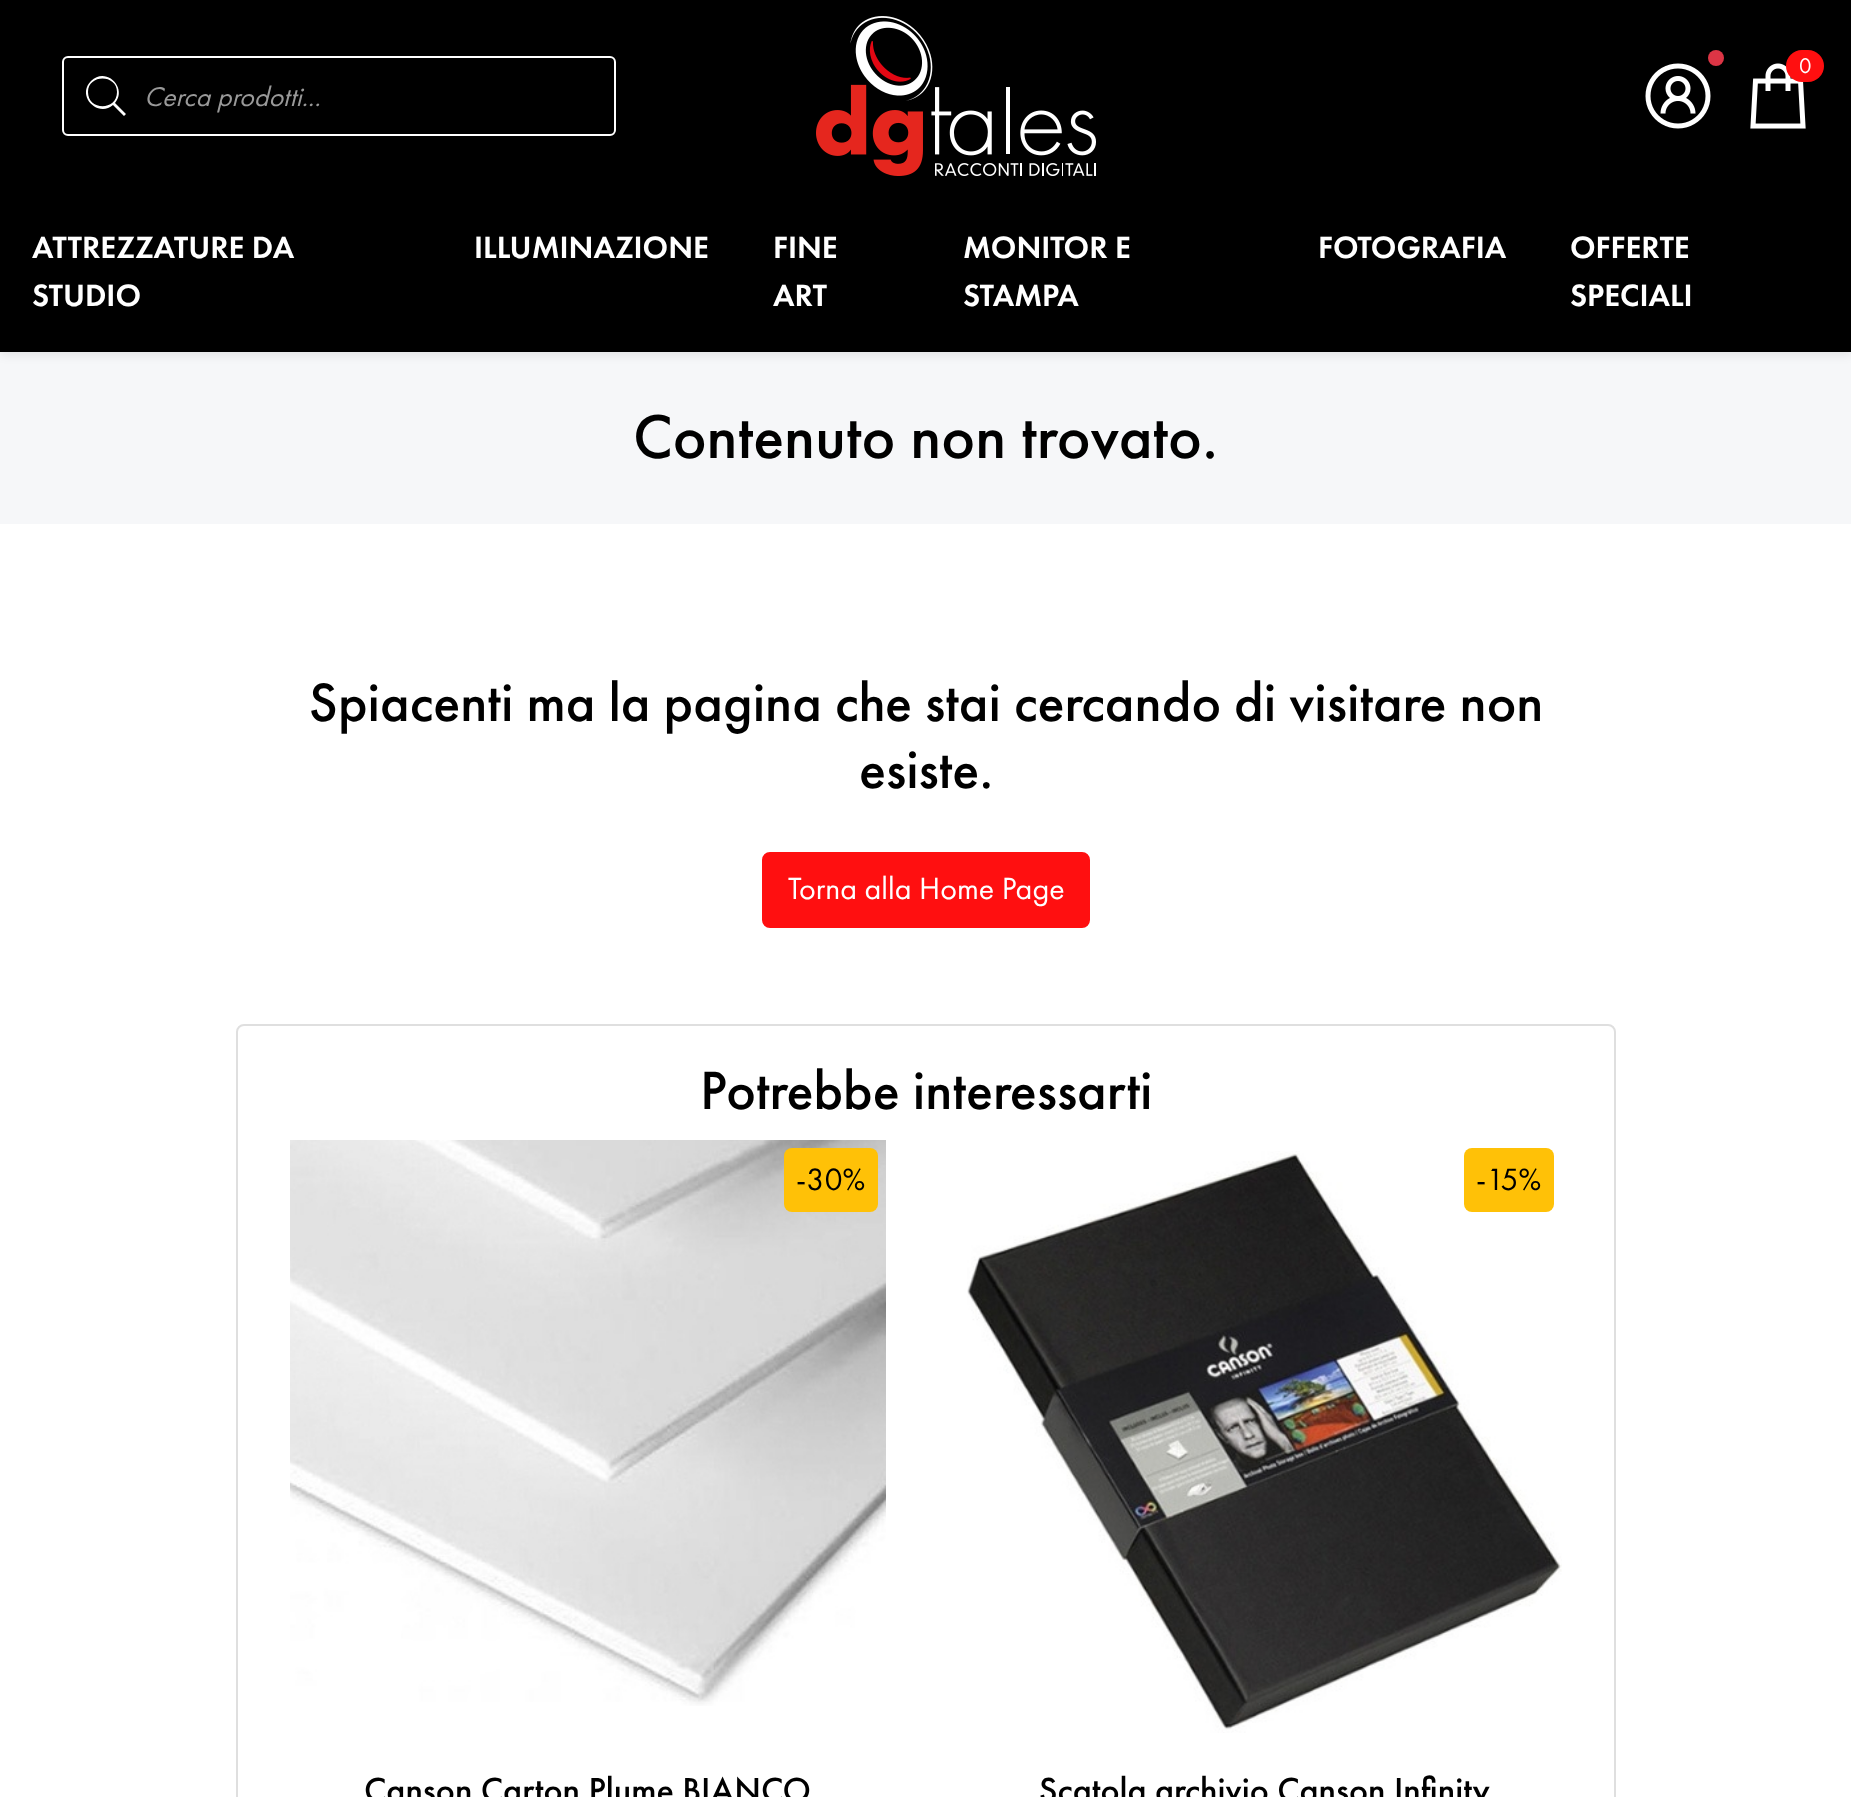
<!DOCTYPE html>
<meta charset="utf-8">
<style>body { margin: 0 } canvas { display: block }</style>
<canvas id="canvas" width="1851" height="1797"></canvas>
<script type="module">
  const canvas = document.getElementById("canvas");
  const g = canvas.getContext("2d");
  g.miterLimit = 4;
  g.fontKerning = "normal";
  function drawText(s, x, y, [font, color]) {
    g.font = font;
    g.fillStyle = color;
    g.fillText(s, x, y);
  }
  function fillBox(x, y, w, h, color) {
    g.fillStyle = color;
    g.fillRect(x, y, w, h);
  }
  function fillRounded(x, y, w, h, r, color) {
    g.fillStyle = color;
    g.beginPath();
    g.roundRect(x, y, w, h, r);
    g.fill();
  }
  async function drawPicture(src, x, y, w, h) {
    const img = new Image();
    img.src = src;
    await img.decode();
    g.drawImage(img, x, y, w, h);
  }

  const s1 = ["22px Futura PT", "#FFFFFF"];
  const s2 = ["italic 28px Futura PT", "#999999"];
  const s3 = ["500 32px 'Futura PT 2'", "#FFFFFF"];
  const s4 = ["500 64px Futura PT", "#000000"];
  const s5 = ["500 56px Futura PT", "#000000"];
  const s6 = ["32px Futura PT", "#FFFFFF"];
  const s7 = ["32px Futura PT", "#000000"];
  const s8 = ["500 36px Futura PT", "#000000"];

  fillBox(0, 0, 1851, 1797, "#FFFFFF");
  fillBox(0, 352, 1851, 172, "#F6F7F9");
  g.fillStyle = "rgba(0, 0, 0, 0.07)";
  g.filter = "blur(4px)";
  g.beginPath();
  g.rect(0, 4, 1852, 352);
  g.fill();
  g.filter = "none";
  fillBox(0, 0, 1851, 352, "#000000");
  await drawPicture("pic1.png", 816, 16, 280, 160);
  await drawPicture("pic2.png", 1645, 63, 66, 66);
  g.fillStyle = "#DC3545";
  g.beginPath();
  g.arc(1716, 58, 8, 0, Math.PI * 2);
  g.fill();
  await drawPicture("pic3.png", 1750, 63, 56, 66);
  fillRounded(1786, 50, 38, 32, 16, "#FF0F10");
  drawText("0", 1799, 73, s1);
  g.beginPath();
  g.roundRect(63, 57, 552, 78, 5);
  g.strokeStyle = "#FFFFFF";
  g.lineWidth = 2;
  g.stroke();
  g.beginPath();
  g.moveTo(126, 114);
  g.lineTo(115, 103);
  g.bezierCurveTo(128, 88, 106, 66, 91, 81);
  g.bezierCurveTo(76, 96, 98, 118, 113, 105);
  g.lineTo(124, 116);
  g.closePath();
  g.moveTo(88, 92);
  g.bezierCurveTo(88, 74, 117, 74, 117, 92);
  g.bezierCurveTo(117, 111, 88, 111, 88, 92);
  g.closePath();
  g.fill();
  drawText("Cerca prodotti...", 144, 106, s2);
  drawText("ATTREZZATURE DA", 32, 258, s3);
  drawText("STUDIO", 32, 306, s3);
  drawText("ILLUMINAZIONE", 474, 258, s3);
  drawText("FINE", 773, 258, s3);
  drawText("ART", 773, 306, s3);
  drawText("MONITOR E", 963, 258, s3);
  drawText("STAMPA", 963, 306, s3);
  drawText("FOTOGRAFIA", 1318, 258, s3);
  drawText("OFFERTE", 1570, 258, s3);
  drawText("SPECIALI", 1570, 306, s3);
  drawText("Contenuto non trovato.", 633, 458, s4);
  drawText("Spiacenti ma la pagina che stai cercando di visitare non", 309, 721, s5);
  drawText("esiste.", 859, 788, s5);
  g.fillStyle = "#FF0F10";
  g.beginPath();
  g.roundRect(763, 853, 326, 74, 7);
  g.fill();
  g.strokeStyle = "#FF0F10";
  g.stroke();
  drawText("Torna alla Home Page", 788, 899, s6);
  g.beginPath();
  g.roundRect(237, 1025, 1378, 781, 7);
  g.strokeStyle = "#DFDFDF";
  g.stroke();
  drawText("Potrebbe interessarti", 700, 1109, s5);
  await drawPicture("pic4.png", 290, 1140, 596, 566);
  fillRounded(784, 1148, 94, 64, 8, "#FFC107");
  drawText("-30%", 796, 1190, s7);
  drawText("Canson Carton Plume BIANCO", 364, 1802, s8);
  await drawPicture("pic5.png", 967, 1151, 595, 582);
  fillRounded(1464, 1148, 90, 64, 8, "#FFC107");
  drawText("-15%", 1476, 1190, s7);
  drawText("Scatola archivio Canson Infinity", 1039, 1802, s8);
</script>
